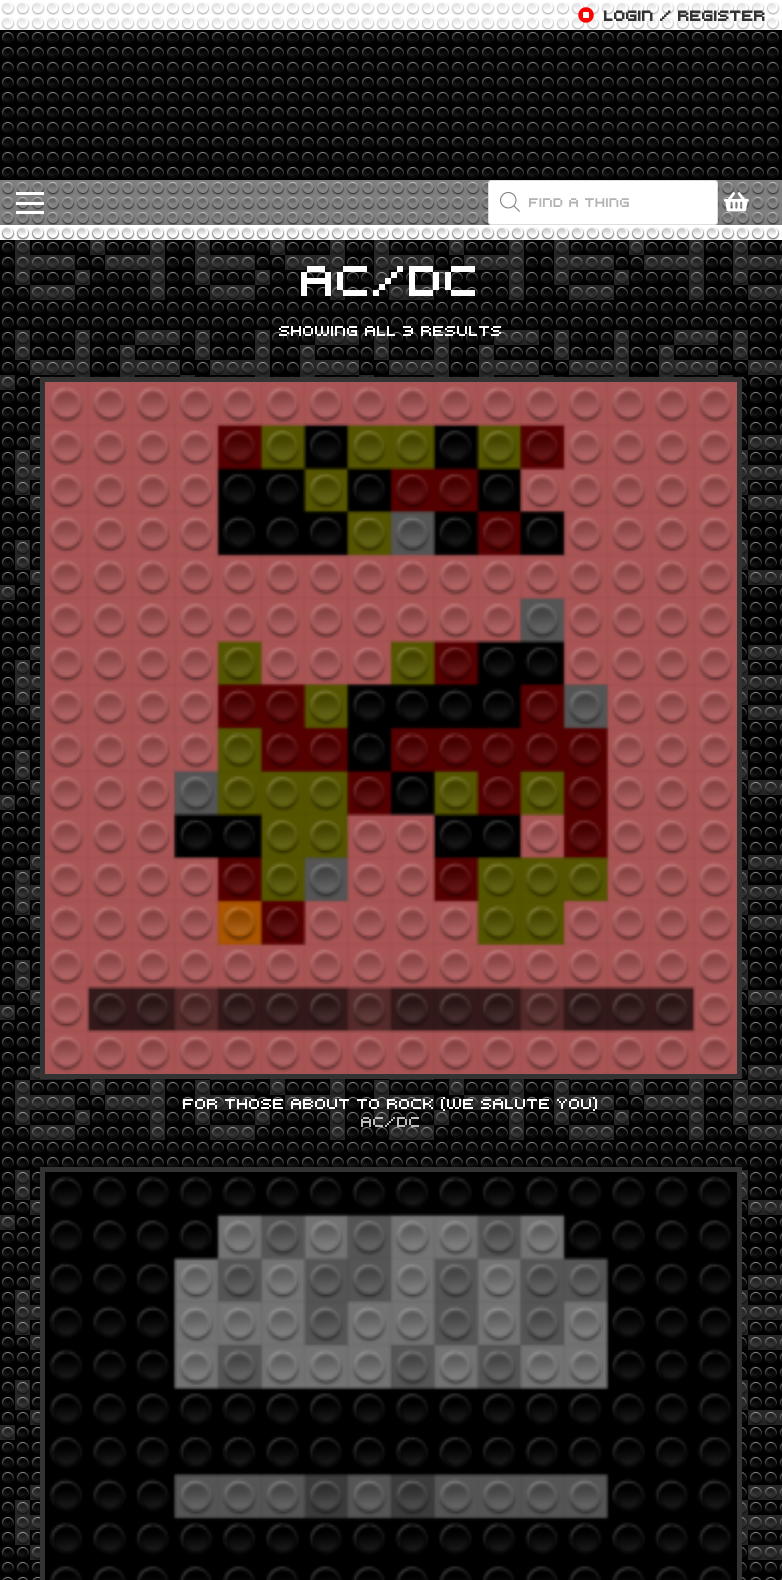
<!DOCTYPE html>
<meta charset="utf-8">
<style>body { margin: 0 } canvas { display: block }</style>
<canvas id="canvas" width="782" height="1580"></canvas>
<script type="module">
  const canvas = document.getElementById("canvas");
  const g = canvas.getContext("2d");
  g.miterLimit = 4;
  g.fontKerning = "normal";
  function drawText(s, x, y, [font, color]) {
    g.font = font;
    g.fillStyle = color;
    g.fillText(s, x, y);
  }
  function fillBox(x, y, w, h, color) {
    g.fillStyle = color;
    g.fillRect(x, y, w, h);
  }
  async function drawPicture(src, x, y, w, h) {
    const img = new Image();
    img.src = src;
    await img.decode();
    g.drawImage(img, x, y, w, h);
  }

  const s1 = ["bold 16px 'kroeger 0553'", "#333333"];
  const s2 = ["14px 'kroeger 0553'", "#B3B3B3"];
  const s3 = ["48px 'kroeger 0553'", "#FFFFFF"];
  const s4 = ["16px 'kroeger 0553'", "#FFFFFF"];
  const s5 = ["16px 'kroeger 0553'", "#BFBFBF"];

  fillBox(0, 0, 782, 1580, "#FFFFFF");
  await drawPicture("pic1.png", 1, 2, 781, 28);
  await drawPicture("pic2.png", 578, 7, 16, 16);
  drawText("LOGIN / REGISTER", 604, 21, s1);
  fillBox(0, 30, 782, 150, "#000000");
  await drawPicture("pic3.png", 1, 31, 781, 147);
  fillBox(0, 180, 782, 45, "#7F7F7F");
  await drawPicture("pic4.png", 1, 181, 781, 44);
  fillBox(16, 202, 28, 3, "#FFFFFF");
  fillBox(16, 192, 28, 3, "#FFFFFF");
  fillBox(16, 211, 28, 3, "#FFFFFF");
  g.beginPath();
  g.roundRect(488.5, 180.5, 229, 44, 2.5);
  g.fill();
  g.strokeStyle = "#DDDDDD";
  g.stroke();
  await drawPicture("pic5.png", 500, 192, 20, 20);
  g.save();
  g.beginPath();
  g.rect(529, 193, 173, 18);
  g.clip();
  drawText("FIND A THING", 529, 207, s2);
  g.restore();
  await drawPicture("pic6.png", 724, 192, 25, 20);
  await drawPicture("pic7.png", 0, 225, 782, 15);
  await drawPicture("pic8.png", 0, 240, 782, 1340);
  drawText("AC/DC", 301, 296, s3);
  drawText("SHOWING ALL 3 RESULTS", 279, 336, s4);
  g.strokeStyle = "#333333";
  g.lineWidth = 5;
  g.strokeRect(42.5, 379.5, 697, 697);
  await drawPicture("pic9.png", 45, 382, 692, 692);
  drawText("FOR THOSE ABOUT TO ROCK (WE SALUTE YOU)", 183, 1109, s4);
  drawText("AC/DC", 361, 1127, s5);
  g.strokeRect(42.5, 1169.5, 697, 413);
  await drawPicture("pic10.png", 45, 1172, 692, 408);
</script>
